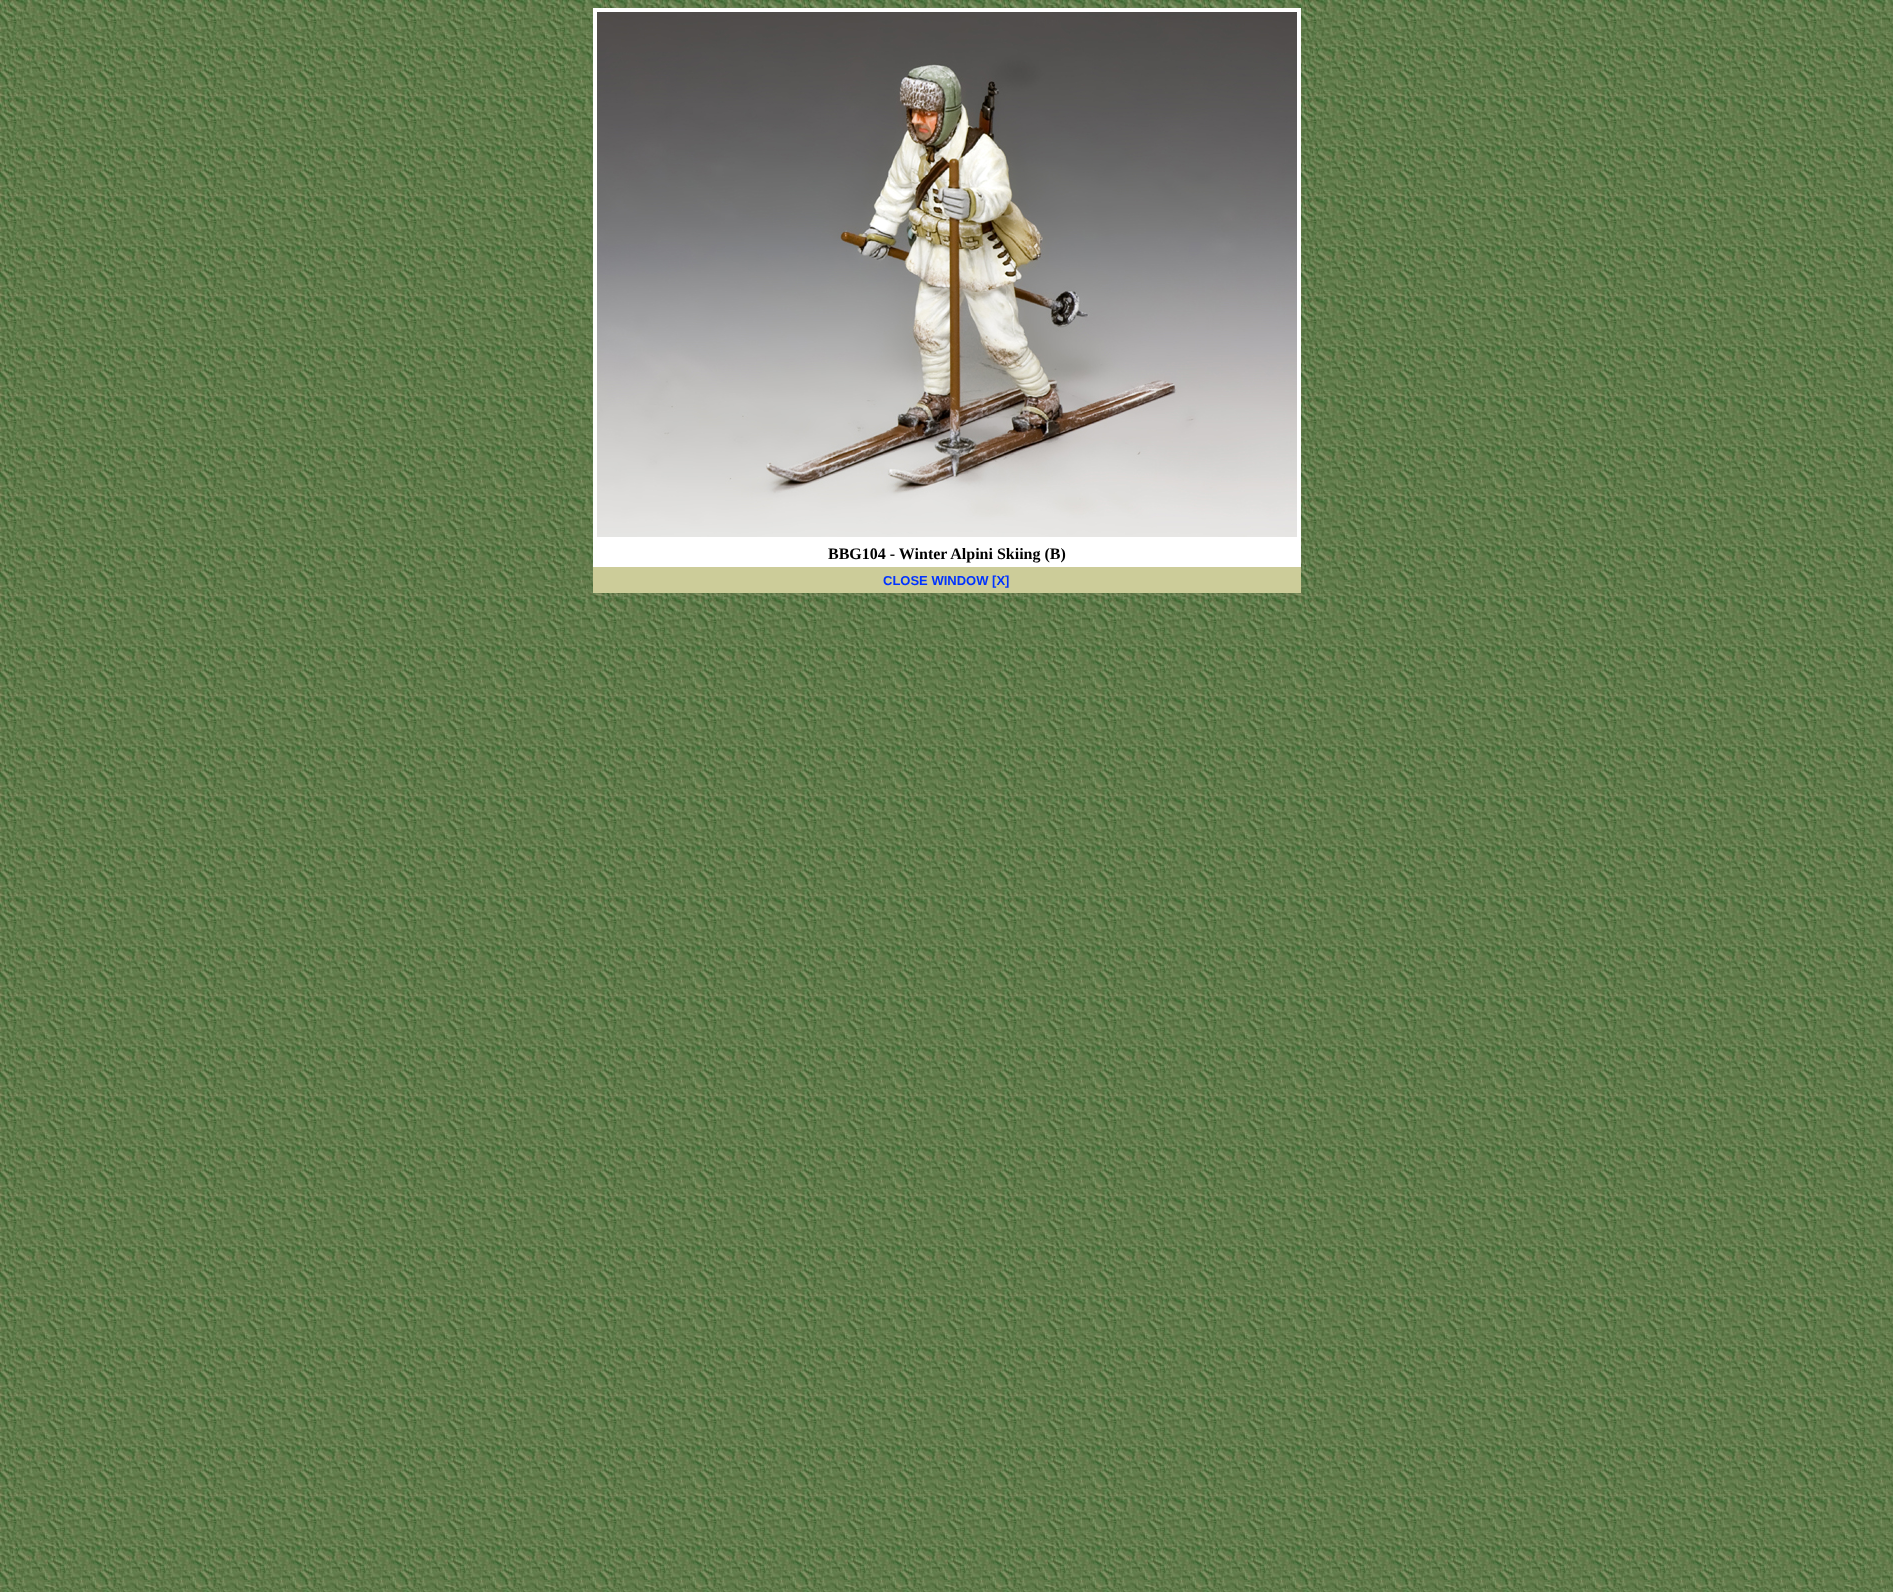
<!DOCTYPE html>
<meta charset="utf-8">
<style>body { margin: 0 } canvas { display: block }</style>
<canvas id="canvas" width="1893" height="1592"></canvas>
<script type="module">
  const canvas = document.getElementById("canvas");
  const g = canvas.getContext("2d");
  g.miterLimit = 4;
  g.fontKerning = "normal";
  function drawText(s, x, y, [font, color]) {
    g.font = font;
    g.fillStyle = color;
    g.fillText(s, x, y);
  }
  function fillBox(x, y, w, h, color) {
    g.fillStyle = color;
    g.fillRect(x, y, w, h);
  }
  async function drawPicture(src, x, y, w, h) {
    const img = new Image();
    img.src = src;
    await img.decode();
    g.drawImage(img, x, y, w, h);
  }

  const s1 = ["bold 16px Liberation Serif", "#000000"];
  const s2 = ["bold 13px Liberation Sans", "#0033FF"];

  fillBox(0, 0, 1893, 1592, "#FFFFFF");
  await drawPicture("pic1.png", 0, 0, 1893, 1592);
  fillBox(593, 567, 708, 26, "#CCCC99");
  fillBox(593, 8, 708, 559, "#FFFFFF");
  await drawPicture("pic2.png", 597, 12, 700, 525);
  drawText("BBG104 - Winter Alpini Skiing (B)", 828, 559, s1);
  drawText("CLOSE WINDOW [X]", 883, 585, s2);
</script>
